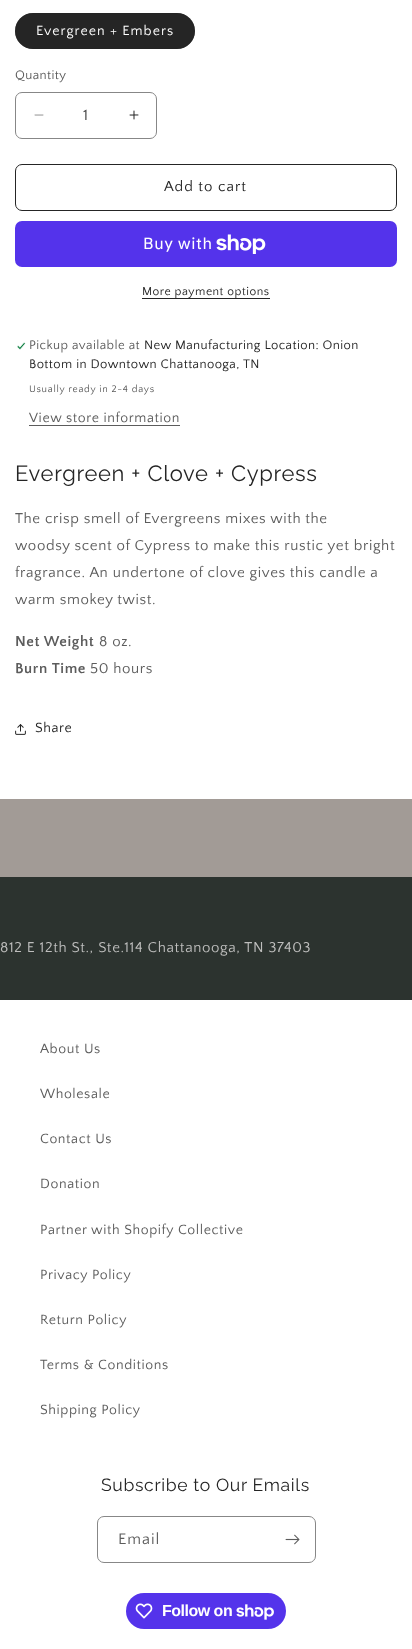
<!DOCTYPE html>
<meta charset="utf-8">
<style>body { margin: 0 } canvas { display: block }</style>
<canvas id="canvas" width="412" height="1649"></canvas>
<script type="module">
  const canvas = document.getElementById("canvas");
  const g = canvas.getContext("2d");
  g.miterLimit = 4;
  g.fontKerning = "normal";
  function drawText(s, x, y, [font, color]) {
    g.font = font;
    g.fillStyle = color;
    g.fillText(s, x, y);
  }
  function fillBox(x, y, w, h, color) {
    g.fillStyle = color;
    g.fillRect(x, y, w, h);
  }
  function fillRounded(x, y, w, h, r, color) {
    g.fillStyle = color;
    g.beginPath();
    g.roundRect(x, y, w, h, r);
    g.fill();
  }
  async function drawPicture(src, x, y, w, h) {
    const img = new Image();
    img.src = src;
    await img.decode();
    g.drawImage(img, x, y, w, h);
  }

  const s1 = ["14px Quattrocento Sans", "#FFFFFF"];
  const s2 = ["13px Quattrocento Sans", "#5C5C5C"];
  const s3 = ["16px Quattrocento Sans", "#464646"];
  const s4 = ["15px Quattrocento Sans", "#252525"];
  const s5 = ["16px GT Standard", "#FFFFFF"];
  const s6 = ["12px Quattrocento Sans", "#252525"];
  const s7 = ["13px Quattrocento Sans", "#252525"];
  const s8 = ["10px Quattrocento Sans", "#5C5C5C"];
  const s9 = ["14px Quattrocento Sans", "#5C5C5C"];
  const s10 = ["22px Raleway", "#252525"];
  const s11 = ["15px Quattrocento Sans", "#5C5C5C"];
  const s12 = ["bold 15px Quattrocento Sans", "#5C5C5C"];
  const s13 = ["14px Quattrocento Sans", "#252525"];
  const s14 = ["15px Quattrocento Sans", "#BEBEBD"];
  const s15 = ["17.6px Raleway", "#252525"];
  const s16 = ["16px Quattrocento Sans", "#5C5C5C"];
  const s17 = ["bold 16px Liberation Sans", "#FFFFFF"];

  fillBox(0, 0, 412, 1649, "#A29B96");
  fillBox(0, 0, 412, 799, "#FFFFFF");
  fillRounded(15, 13, 180, 36, 18, "#252525");
  g.beginPath();
  g.roundRect(15.5, 13.5, 179, 35, 17.5);
  g.strokeStyle = "rgba(37, 37, 37, 0.55)";
  g.stroke();
  g.letterSpacing = "1px";
  drawText("Evergreen + Embers", 36, 35, s1);
  g.letterSpacing = "0.4px";
  drawText("Quantity", 15, 79, s2);
  await drawPicture("pic1.png", 34, 114, 10, 2);
  await drawPicture("pic2.png", 129, 110, 10, 10);
  g.beginPath();
  g.roundRect(15.5, 92.5, 141, 46, 6.5);
  g.strokeStyle = "#878787";
  g.stroke();
  g.letterSpacing = "0px";
  drawText("1", 83, 120, s3);
  g.beginPath();
  g.roundRect(15.5, 164.5, 381, 46, 6.5);
  g.strokeStyle = "#252525";
  g.stroke();
  g.letterSpacing = "1px";
  drawText("Add to cart", 164, 191, s4);
  fillRounded(15, 221, 382, 46, 7, "#5433EB");
  g.letterSpacing = "0.6px";
  drawText("Buy with", 143, 249, s5);
  await drawPicture("pic3.png", 216, 234, 50, 20);
  fillBox(142, 298, 128, 1, "#252525");
  g.letterSpacing = "0.5px";
  drawText("More payment options", 142, 295, s6);
  await drawPicture("pic4.png", 17, 342, 9, 8);
  g.letterSpacing = "0.4px";
  drawText("Pickup available at", 29, 349, s2);
  drawText("New Manufacturing Location: Onion", 144, 349, s7);
  drawText("Bottom in Downtown Chattanooga, TN", 29, 368, s7);
  g.letterSpacing = "0.7px";
  drawText("Usually ready in 2-4 days", 29, 392, s8);
  g.letterSpacing = "0.6px";
  drawText("View store information", 29, 422, s9);
  fillBox(29, 425, 151, 1, "#5C5C5C");
  g.letterSpacing = "0.65px";
  drawText("Evergreen + Clove + Cypress", 15, 481, s10);
  g.letterSpacing = "0.6px";
  drawText("The crisp smell of Evergreens mixes with the", 15, 523, s11);
  drawText("woodsy scent of Cypress to make this rustic yet bright", 15, 550, s11);
  drawText("fragrance. An undertone of clove gives this candle a", 15, 577, s11);
  drawText("warm smokey twist.", 15, 604, s11);
  drawText("Net Weight", 15, 646, s12);
  drawText("8 oz.", 99, 646, s11);
  drawText("Burn Time", 15, 673, s12);
  drawText("50 hours", 90, 673, s11);
  await drawPicture("pic5.png", 15, 724, 11, 11);
  drawText("Share", 35, 732, s13);
  fillBox(0, 877, 412, 123, "#2C332F");
  drawText("812 E 12th St., Ste.114 Chattanooga, TN 37403", 0, 952, s14);
  fillBox(0, 1000, 412, 649, "#FFFFFF");
  drawText("About Us", 40, 1053, s9);
  drawText("Wholesale", 40, 1098, s9);
  drawText("Contact Us", 40, 1143, s9);
  drawText("Donation", 40, 1188, s9);
  drawText("Partner with Shopify Collective", 40, 1234, s9);
  drawText("Privacy Policy", 40, 1279, s9);
  drawText("Return Policy", 40, 1324, s9);
  drawText("Terms & Conditions", 40, 1369, s9);
  drawText("Shipping Policy", 40, 1414, s9);
  g.letterSpacing = "0.65px";
  drawText("Subscribe to Our Emails", 101, 1491, s15);
  g.beginPath();
  g.roundRect(97.5, 1516.5, 218, 46, 6.5);
  g.strokeStyle = "#878787";
  g.stroke();
  g.letterSpacing = "1px";
  drawText("Email", 118, 1544, s16);
  await drawPicture("pic6.png", 285, 1534, 15, 11);
  fillRounded(126, 1593, 160, 36, 18, "#5433EB");
  await drawPicture("pic7.png", 135, 1603, 18, 16);
  g.letterSpacing = "-0.5px";
  drawText("Follow on", 162, 1616, s17);
  await drawPicture("pic8.png", 236, 1604, 38, 16);
</script>
